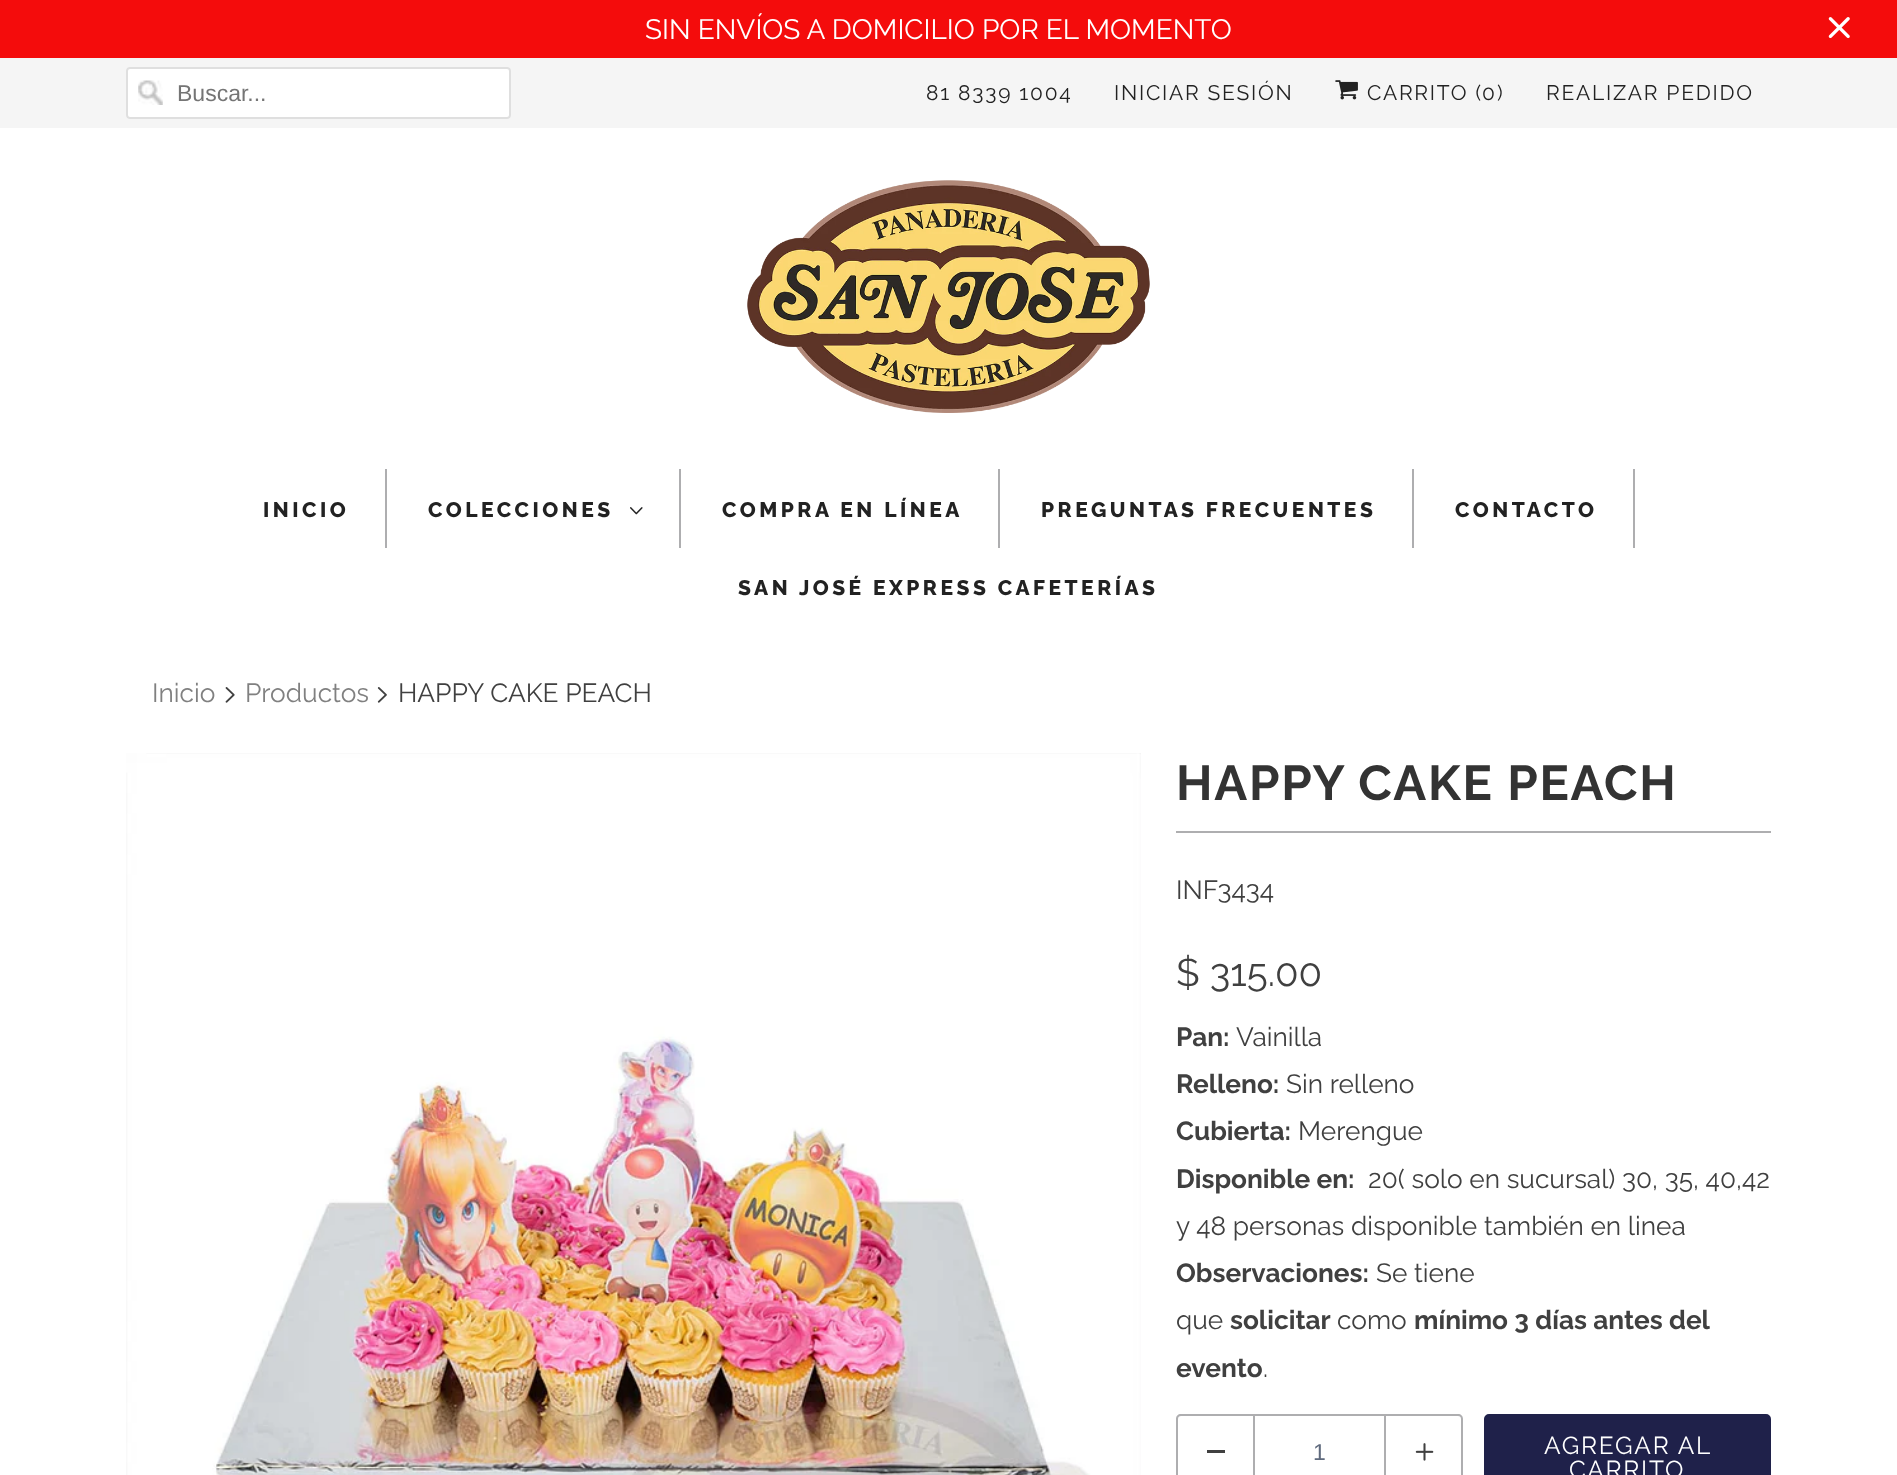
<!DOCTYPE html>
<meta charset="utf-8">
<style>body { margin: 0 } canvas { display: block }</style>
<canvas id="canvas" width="1897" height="1475"></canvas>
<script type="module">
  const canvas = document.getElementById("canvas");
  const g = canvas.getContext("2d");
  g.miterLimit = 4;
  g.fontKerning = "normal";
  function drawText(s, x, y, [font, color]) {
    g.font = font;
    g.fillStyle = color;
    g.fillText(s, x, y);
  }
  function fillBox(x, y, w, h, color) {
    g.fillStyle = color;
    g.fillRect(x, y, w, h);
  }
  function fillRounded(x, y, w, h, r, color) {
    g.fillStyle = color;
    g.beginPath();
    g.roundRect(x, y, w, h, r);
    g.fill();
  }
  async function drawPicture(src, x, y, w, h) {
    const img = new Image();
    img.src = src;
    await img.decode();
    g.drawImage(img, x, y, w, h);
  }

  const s1 = ["28px Raleway", "#FFFFFF"];
  const s2 = ["23px Liberation Sans", "#757575"];
  const s3 = ["21px Raleway", "#222222"];
  const s4 = ["800 21px Raleway", "#222222"];
  const s5 = ["26.25px Raleway", "#808080"];
  const s6 = ["26.25px Raleway", "#404040"];
  const s7 = ["bold 49px Raleway", "#333333"];
  const s8 = ["38.5px Raleway", "#404040"];
  const s9 = ["bold 26.25px Raleway", "#404040"];
  const s10 = ["23px Liberation Sans", "#5F6A7D"];
  const s11 = ["24.5px Raleway", "#FFFFFF"];

  fillBox(0, 0, 1897, 1475, "#FFFFFF");
  fillBox(0, 0, 1897, 58, "#F40C0C");
  drawText("SIN ENVÍOS A DOMICILIO POR EL MOMENTO", 645, 39, s1);
  await drawPicture("pic1.png", 1828, 17, 22, 22);
  fillBox(0, 58, 1897, 70, "#F5F5F5");
  fillRounded(126, 67, 385, 52, 4, "#FFFFFF");
  await drawPicture("pic2.png", 138, 80, 25, 25);
  g.beginPath();
  g.roundRect(127, 68, 383, 50, 3);
  g.strokeStyle = "#DFDFDF";
  g.lineWidth = 2;
  g.stroke();
  drawText("Buscar...", 177, 101, s2);
  g.letterSpacing = "1.75px";
  drawText("81 8339 1004", 926, 100, s3);
  drawText("INICIAR SESIÓN", 1114, 100, s3);
  await drawPicture("pic3.png", 1335, 80, 23, 20);
  drawText("CARRITO (", 1367, 100, s3);
  drawText("0", 1482, 100, s3);
  drawText(")", 1497, 100, s3);
  drawText("REALIZAR PEDIDO", 1546, 100, s3);
  await drawPicture("pic4.png", 747, 180, 403, 233);
  fillBox(385, 469, 2, 79, "#AEAEB0");
  g.letterSpacing = "3.5px";
  drawText("INICIO", 263, 517, s4);
  fillBox(679, 469, 2, 79, "#AEAEB0");
  drawText("COLECCIONES", 428, 517, s4);
  await drawPicture("pic5.png", 630, 507, 13, 8);
  fillBox(998, 469, 2, 79, "#AEAEB0");
  drawText("COMPRA EN LÍNEA", 722, 517, s4);
  fillBox(1412, 469, 2, 79, "#AEAEB0");
  drawText("PREGUNTAS FRECUENTES", 1041, 517, s4);
  fillBox(1633, 469, 2, 79, "#AEAEB0");
  drawText("CONTACTO", 1455, 517, s4);
  drawText("SAN JOSÉ EXPRESS CAFETERÍAS", 738, 595, s4);
  g.letterSpacing = "0px";
  drawText("Inicio", 152, 702, s5);
  await drawPicture("pic6.png", 225, 687, 10, 16);
  drawText("Productos", 245, 702, s5);
  await drawPicture("pic7.png", 377, 687, 10, 16);
  drawText("HAPPY CAKE PEACH", 398, 702, s6);
  await drawPicture("pic8.png", 126, 753, 1015, 722);
  fillBox(1176, 831, 595, 2, "#AEAEB0");
  g.letterSpacing = "1.75px";
  drawText("HAPPY CAKE PEACH", 1176, 800, s7);
  g.letterSpacing = "0px";
  drawText("INF3434", 1176, 899, s6);
  drawText("$ 315.00", 1176, 986, s8);
  drawText("Pan:", 1176, 1046, s9);
  drawText("Vainilla", 1236, 1046, s6);
  drawText("Relleno:", 1176, 1093, s9);
  drawText("Sin relleno", 1286, 1093, s6);
  drawText("Cubierta:", 1176, 1140, s9);
  drawText("Merengue", 1298, 1140, s6);
  drawText("Disponible en:", 1176, 1188, s9);
  drawText("20( solo en sucursal) 30, 35, 40,42", 1368, 1188, s6);
  drawText("y 48 personas disponible también en linea", 1176, 1235, s6);
  drawText("Observaciones:", 1176, 1282, s9);
  drawText("Se tiene", 1376, 1282, s6);
  drawText("que", 1176, 1329, s6);
  drawText("solicitar", 1230, 1329, s9);
  drawText("como", 1337, 1329, s6);
  drawText("mínimo 3 días antes del", 1414, 1329, s9);
  drawText("evento", 1176, 1377, s9);
  drawText(".", 1263, 1377, s6);
  g.fillStyle = "#AEAEB0";
  g.beginPath();
  g.moveTo(1181, 1414);
  g.lineTo(1253, 1414);
  g.lineTo(1253, 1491);
  g.lineTo(1181, 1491);
  g.bezierCurveTo(1178, 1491, 1176, 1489, 1176, 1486);
  g.lineTo(1176, 1419);
  g.bezierCurveTo(1176, 1416, 1178, 1414, 1181, 1414);
  g.closePath();
  g.moveTo(1181, 1416);
  g.lineTo(1253, 1416);
  g.lineTo(1253, 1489);
  g.lineTo(1181, 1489);
  g.bezierCurveTo(1179, 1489, 1178, 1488, 1178, 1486);
  g.lineTo(1178, 1419);
  g.bezierCurveTo(1178, 1417, 1179, 1416, 1181, 1416);
  g.closePath();
  g.fill("evenodd");
  fillBox(1207, 1450, 18, 3, "#404040");
  g.strokeStyle = "#AEAEB0";
  g.strokeRect(1254, 1415, 131, 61);
  drawText("1", 1313, 1460, s10);
  g.fillStyle = "#AEAEB0";
  g.beginPath();
  g.moveTo(1386, 1414);
  g.lineTo(1458, 1414);
  g.bezierCurveTo(1461, 1414, 1463, 1416, 1463, 1419);
  g.lineTo(1463, 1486);
  g.bezierCurveTo(1463, 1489, 1461, 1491, 1458, 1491);
  g.lineTo(1386, 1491);
  g.closePath();
  g.moveTo(1386, 1416);
  g.lineTo(1458, 1416);
  g.bezierCurveTo(1460, 1416, 1461, 1417, 1461, 1419);
  g.lineTo(1461, 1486);
  g.bezierCurveTo(1461, 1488, 1460, 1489, 1458, 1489);
  g.lineTo(1386, 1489);
  g.closePath();
  g.fill("evenodd");
  await drawPicture("pic9.png", 1415, 1443, 19, 18);
  g.fillStyle = "#1F214A";
  g.beginPath();
  g.roundRect(1485, 1415, 285, 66, 4);
  g.fill();
  g.strokeStyle = "#1F214A";
  g.stroke();
  g.letterSpacing = "1.75px";
  drawText("AGREGAR AL", 1544, 1454, s11);
  drawText("CARRITO", 1569, 1478, s11);
</script>
